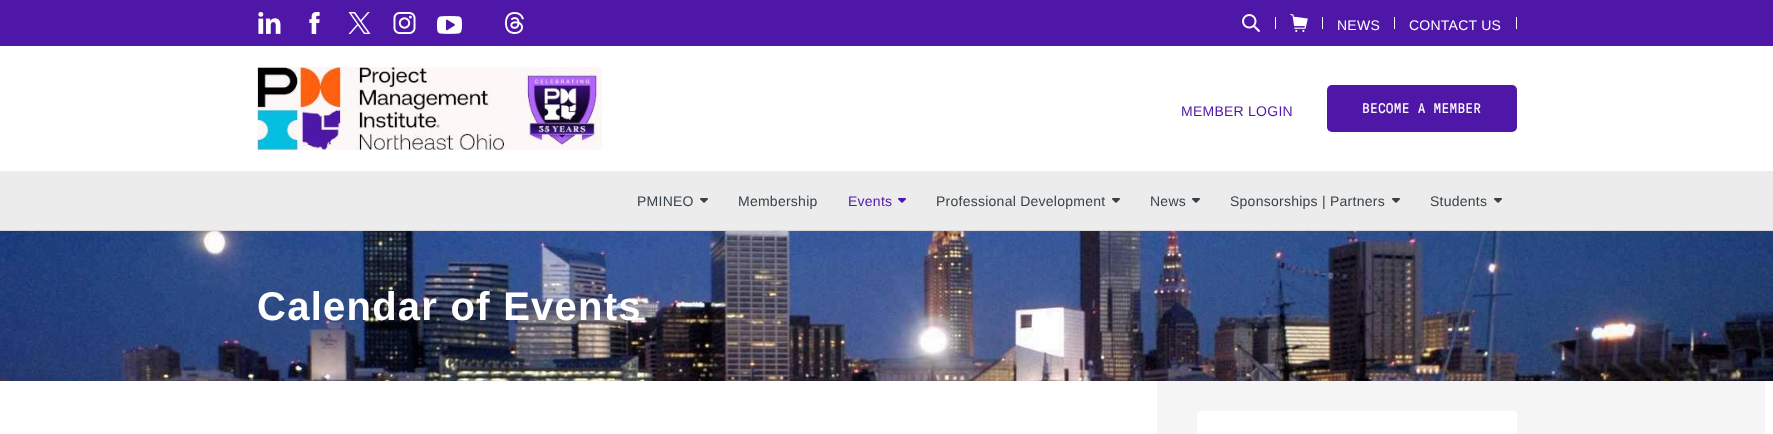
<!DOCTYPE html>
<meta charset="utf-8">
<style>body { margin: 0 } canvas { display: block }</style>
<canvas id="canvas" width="1773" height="434"></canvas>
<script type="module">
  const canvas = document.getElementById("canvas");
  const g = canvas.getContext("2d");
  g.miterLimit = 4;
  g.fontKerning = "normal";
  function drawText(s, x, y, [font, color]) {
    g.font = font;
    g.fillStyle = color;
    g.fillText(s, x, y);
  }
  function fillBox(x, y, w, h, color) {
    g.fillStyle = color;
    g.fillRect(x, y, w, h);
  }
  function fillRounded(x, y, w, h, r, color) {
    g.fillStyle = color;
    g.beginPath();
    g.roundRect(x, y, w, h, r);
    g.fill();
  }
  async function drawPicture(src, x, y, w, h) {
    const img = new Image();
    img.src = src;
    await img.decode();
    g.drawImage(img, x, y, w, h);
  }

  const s1 = ["14px Liberation Sans", "#FFFFFF"];
  const s2 = ["14px Liberation Sans", "#4F17A7"];
  const s3 = ["14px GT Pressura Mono", "#FFFFFF"];
  const s4 = ["14px Liberation Sans", "#37424A"];
  const s5 = ["bold 40px Liberation Sans", "#FFFFFF"];

  fillBox(0, 0, 1773, 434, "#FFFFFF");
  fillBox(0, 0, 1773, 46, "#4F17A7");
  await drawPicture("pic1.png", 258, 12, 23, 22);
  await drawPicture("pic2.png", 309, 12, 11, 22);
  await drawPicture("pic3.png", 348, 12, 23, 22);
  await drawPicture("pic4.png", 393, 12, 23, 22);
  await drawPicture("pic5.png", 437, 16, 25, 18);
  await drawPicture("pic6.png", 505, 12, 19, 22);
  await drawPicture("pic7.png", 1242, 14, 18, 18);
  fillBox(1275, 17, 1, 12, "#FFFFFF");
  await drawPicture("pic8.png", 1290, 14, 18, 18);
  fillBox(1322, 17, 1, 12, "#FFFFFF");
  g.letterSpacing = "0.25px";
  drawText("NEWS", 1337, 30, s1);
  fillBox(1394, 17, 1, 12, "#FFFFFF");
  drawText("CONTACT US", 1409, 30, s1);
  fillBox(1516, 17, 1, 12, "#FFFFFF");
  await drawPicture("pic9.png", 257, 67, 345, 83);
  drawText("MEMBER LOGIN", 1181, 116, s2);
  fillRounded(1327, 85, 190, 47, 5, "#4F17A7");
  drawText("BECOME A MEMBER", 1362, 113, s3);
  fillBox(0, 171, 1773, 59, "#ECECEC");
  fillBox(0, 230, 1773, 1, "#D9D9D9");
  drawText("PMINEO", 637, 206, s4);
  await drawPicture("pic10.png", 700, 198, 8, 5);
  drawText("Membership", 738, 206, s4);
  drawText("Events", 848, 206, s2);
  await drawPicture("pic11.png", 898, 198, 8, 5);
  drawText("Professional Development", 936, 206, s4);
  await drawPicture("pic10.png", 1112, 198, 8, 5);
  drawText("News", 1150, 206, s4);
  await drawPicture("pic10.png", 1192, 198, 8, 5);
  drawText("Sponsorships | Partners", 1230, 206, s4);
  await drawPicture("pic10.png", 1392, 198, 8, 5);
  drawText("Students", 1430, 206, s4);
  await drawPicture("pic10.png", 1494, 198, 8, 5);
  await drawPicture("pic12.png", 0, 231, 1773, 150);
  g.letterSpacing = "1.25px";
  drawText("Calendar of Events", 257, 320, s5);
  fillBox(1157, 381, 608, 53, "#F5F5F5");
  fillRounded(1197, 411, 320, 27, 4, "#FFFFFF");
</script>
